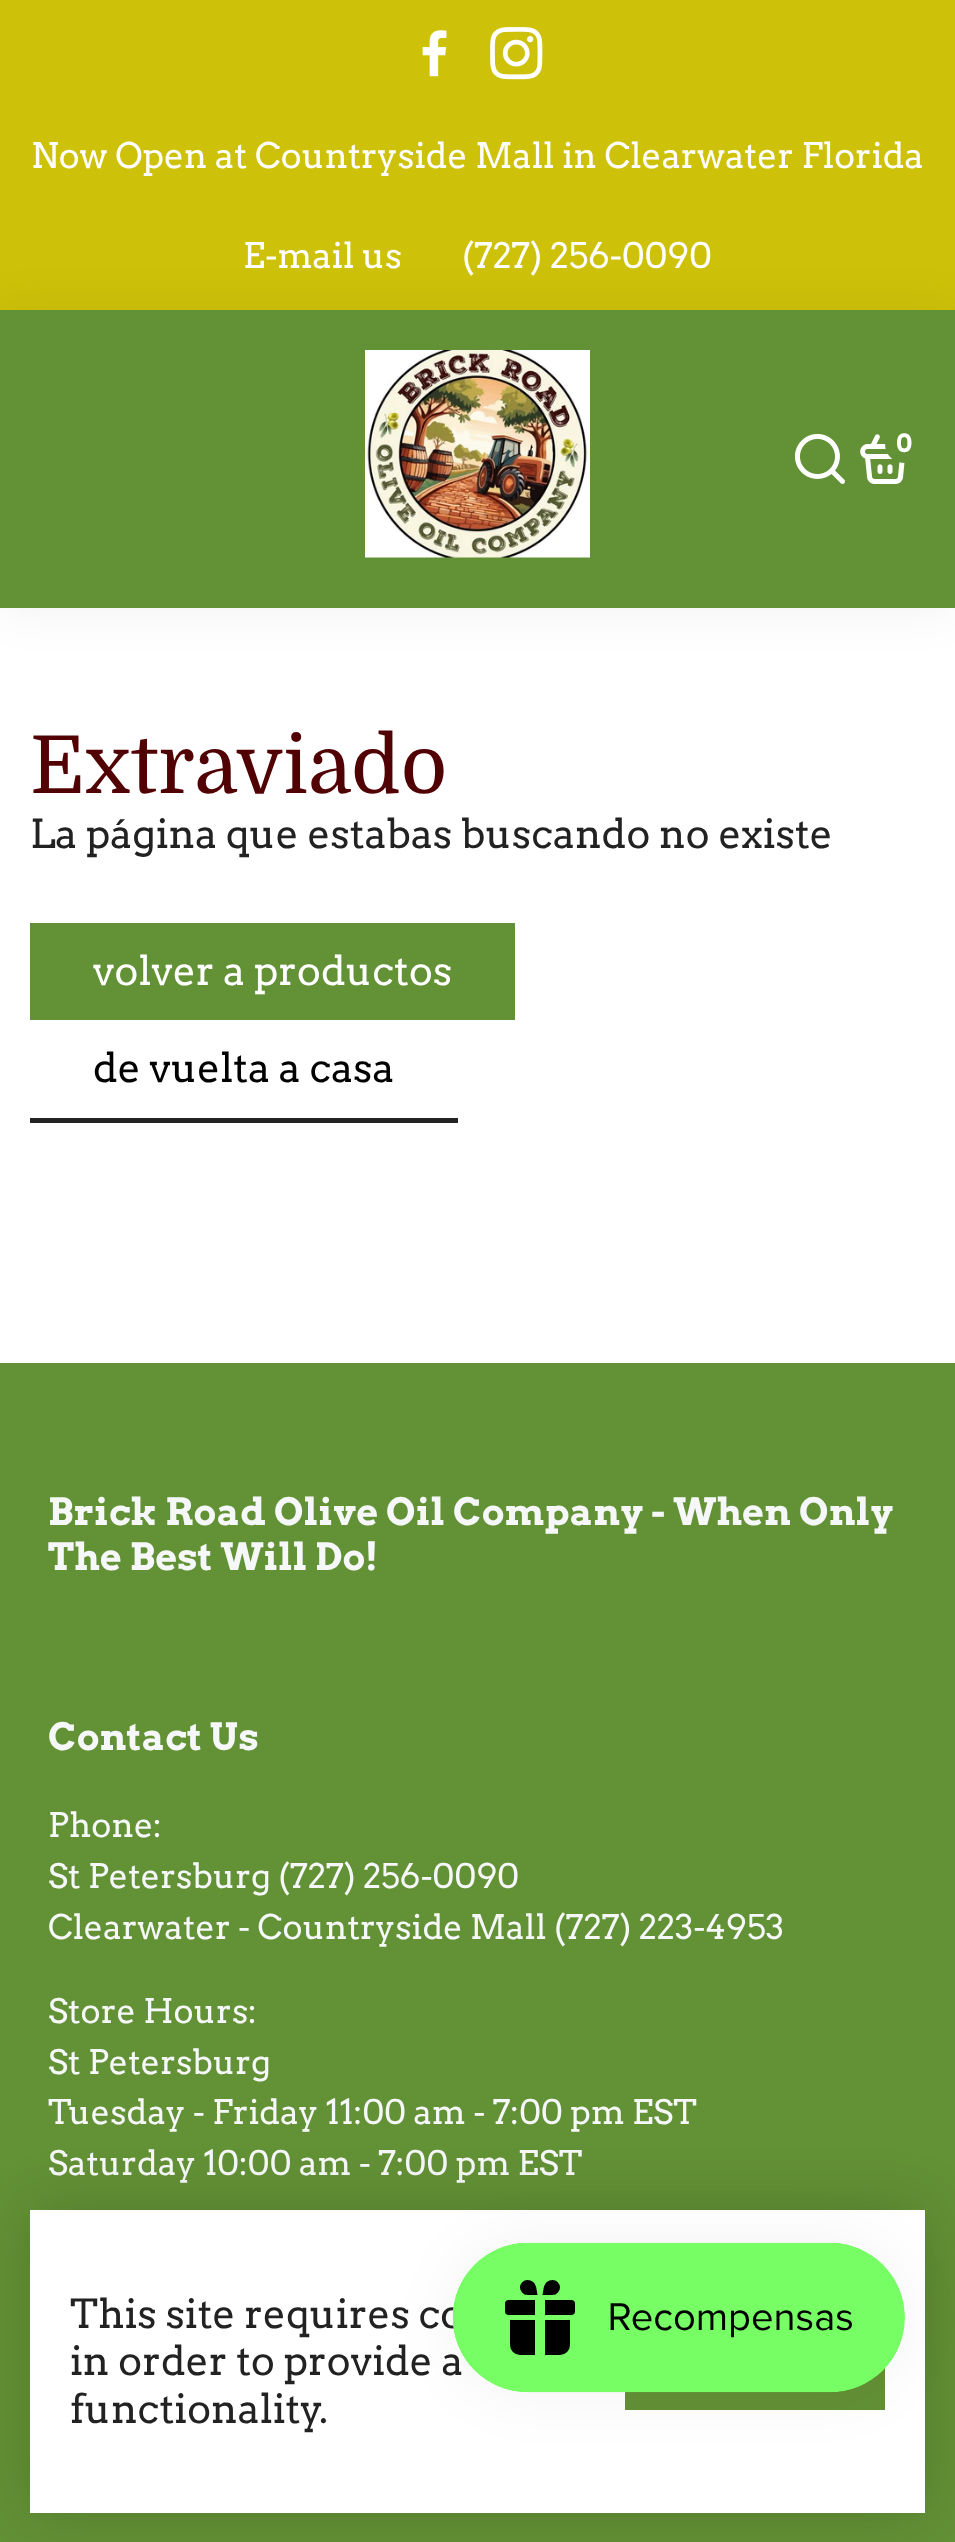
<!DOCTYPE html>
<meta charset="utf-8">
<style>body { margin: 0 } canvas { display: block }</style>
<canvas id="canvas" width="955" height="2542"></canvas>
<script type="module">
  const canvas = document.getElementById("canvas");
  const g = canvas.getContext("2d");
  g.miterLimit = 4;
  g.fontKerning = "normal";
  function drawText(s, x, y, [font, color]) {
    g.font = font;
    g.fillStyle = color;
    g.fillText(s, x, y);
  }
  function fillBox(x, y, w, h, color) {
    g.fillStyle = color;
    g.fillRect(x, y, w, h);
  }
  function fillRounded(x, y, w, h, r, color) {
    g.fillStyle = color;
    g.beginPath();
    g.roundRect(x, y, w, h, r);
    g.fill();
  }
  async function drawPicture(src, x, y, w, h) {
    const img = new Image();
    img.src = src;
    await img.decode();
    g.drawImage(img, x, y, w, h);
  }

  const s1 = ["35px Arvo", "#FFFFFF"];
  const s2 = ["bold 25px Arvo", "#FFFFFF"];
  const s3 = ["80px Domine", "#510003"];
  const s4 = ["40px Arvo", "#222222"];
  const s5 = ["40px Arvo", "#FFFFFF"];
  const s6 = ["40px Arvo", "#000000"];
  const s7 = ["bold 37.5px Arvo", "#F6F7F8"];
  const s8 = ["33.75px Arvo", "#F6F7F8"];

  fillBox(0, 0, 955, 2542, "#FFFFFF");
  fillBox(0, 0, 955, 310, "#CEC10A");
  await drawPicture("pic1.png", 422, 30, 25, 47);
  await drawPicture("pic2.png", 490, 27, 53, 53);
  drawText("Now Open at Countryside Mall in Clearwater Florida", 31, 168, s1);
  drawText("E-mail us", 243, 268, s1);
  drawText("(727) 256-0090", 462, 268, s1);
  g.fillStyle = "rgba(0, 0, 0, 0.06)";
  g.filter = "blur(25px)";
  g.beginPath();
  g.rect(0, 310, 955, 298);
  g.fill();
  g.filter = "none";
  fillBox(0, 310, 955, 298, "#639136");
  await drawPicture("pic3.png", 365, 350, 225, 208);
  await drawPicture("pic4.png", 794, 433, 51, 51);
  await drawPicture("pic5.png", 860, 434, 45, 50);
  fillRounded(885, 423, 38, 40, 19, "#639136");
  drawText("0", 896, 452, s2);
  drawText("Extraviado", 30, 793, s3);
  drawText("La página que estabas buscando no existe", 30, 848, s4);
  fillBox(30, 923, 485, 97, "#639136");
  drawText("volver a productos", 93, 985, s5);
  fillBox(30, 1118, 428, 5, "#222222");
  drawText("de vuelta a casa", 93, 1082, s6);
  fillBox(0, 1363, 955, 1179, "#639136");
  g.letterSpacing = "0.25px";
  drawText("Brick Road Olive Oil Company - When Only", 48, 1525, s7);
  drawText("The Best Will Do!", 48, 1570, s7);
  drawText("Contact Us", 48, 1750, s7);
  g.letterSpacing = "0px";
  drawText("Phone:", 48, 1837, s8);
  drawText("St Petersburg (727) 256-0090", 48, 1888, s8);
  drawText("Clearwater - Countryside Mall (727) 223-4953", 48, 1939, s8);
  drawText("Store Hours:", 48, 2023, s8);
  drawText("St Petersburg", 48, 2074, s8);
  drawText("Tuesday - Friday 11:00 am - 7:00 pm EST", 48, 2124, s8);
  drawText("Saturday 10:00 am - 7:00 pm EST", 48, 2175, s8);
  g.fillStyle = "rgba(0, 0, 0, 0.16)";
  g.filter = "blur(30px)";
  g.beginPath();
  g.rect(30, 2210, 895, 303);
  g.fill();
  g.filter = "none";
  fillBox(30, 2210, 895, 303, "#FFFFFF");
  drawText("This site requires co", 70, 2328, s4);
  drawText("in order to provide a", 70, 2375, s4);
  drawText("functionality.", 70, 2423, s4);
  fillBox(625, 2368, 260, 42, "#639136");
  g.fillStyle = "rgba(0, 0, 0, 0.05)";
  g.filter = "blur(31px)";
  g.beginPath();
  g.roundRect(453, 2243, 452, 150, 75);
  g.fill();
  g.filter = "none";
  await drawPicture("pic6.png", 452, 2242, 453, 151);
</script>
